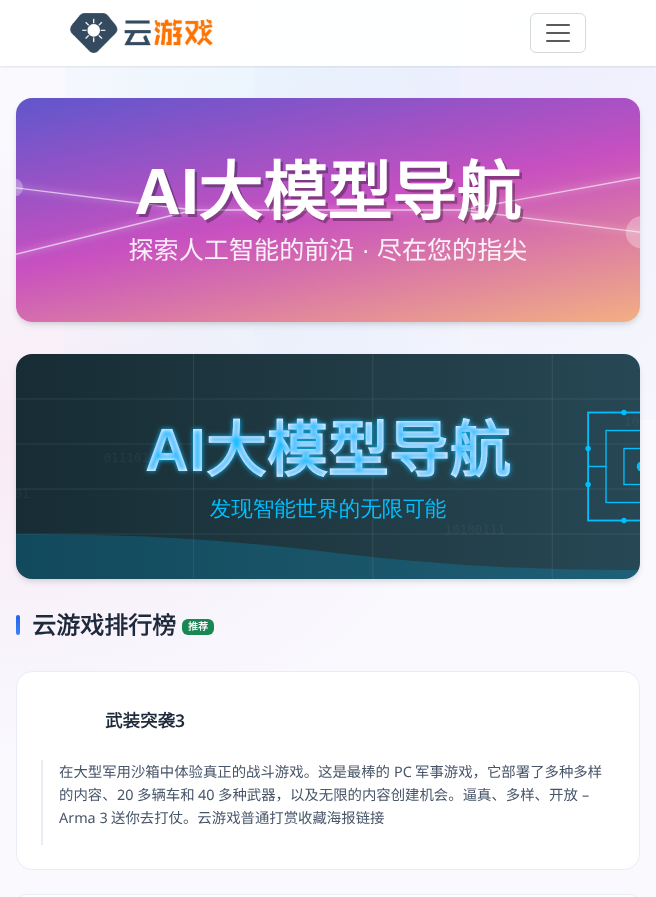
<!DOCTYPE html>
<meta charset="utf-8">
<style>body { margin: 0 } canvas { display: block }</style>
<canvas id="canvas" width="656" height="897"></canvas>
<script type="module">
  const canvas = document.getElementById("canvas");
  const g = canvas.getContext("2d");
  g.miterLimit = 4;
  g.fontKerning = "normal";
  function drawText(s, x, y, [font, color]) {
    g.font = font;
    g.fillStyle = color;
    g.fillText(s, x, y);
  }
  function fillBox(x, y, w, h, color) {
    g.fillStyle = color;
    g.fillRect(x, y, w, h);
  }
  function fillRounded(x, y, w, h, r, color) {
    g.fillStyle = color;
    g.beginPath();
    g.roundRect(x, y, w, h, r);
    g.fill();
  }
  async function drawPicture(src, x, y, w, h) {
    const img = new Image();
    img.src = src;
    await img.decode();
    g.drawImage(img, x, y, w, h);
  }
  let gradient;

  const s1 = ["bold 24px Noto Sans CJK SC", "#1E293B"];
  const s2 = ["bold 10px Noto Sans CJK SC", "#FFFFFF"];
  const s3 = ["bold 17.5px Noto Sans CJK SC", "#1E293B"];
  const s4 = ["600 17.5px Noto Sans", "#1E293B"];
  const s5 = ["14.4px Noto Sans CJK SC", "#475569"];
  const s6 = ["14.4px Noto Sans", "#475569"];

  fillBox(0, 0, 656, 897, "#FFFFFF");
  gradient = g.createRadialGradient(0, 657.21, 0, 0, 657.21, 928);
  gradient.addColorStop(0, "#F8EBF6");
  gradient.addColorStop(0.5, "#F9F9FE");
  g.fillStyle = gradient;
  g.beginPath();
  g.rect(0, 0, 656, 897);
  g.save();
  g.clip();
  g.scale(1, 634 / 928);
  g.fillRect(0, 0, 656, 1313);
  g.restore();
  gradient = g.createRadialGradient(525, 0, 0, 525, 0, 742);
  gradient.addColorStop(0, "rgba(99, 102, 241, 0.08)");
  gradient.addColorStop(0.5, "rgba(99, 102, 241, 0)");
  g.fillStyle = gradient;
  g.beginPath();
  g.rect(254, 0, 402, 420);
  g.save();
  g.clip();
  g.scale(1, 1269 / 742);
  g.fillRect(0, 0, 656, 525);
  g.restore();
  gradient = g.createRadialGradient(262, 98.23, 0, 262, 98.23, 557);
  gradient.addColorStop(0, "rgba(56, 189, 248, 0.08)");
  gradient.addColorStop(0.5, "rgba(56, 189, 248, 0)");
  g.fillStyle = gradient;
  g.beginPath();
  g.rect(65, 0, 395, 354);
  g.save();
  g.clip();
  g.scale(1, 1015 / 557);
  g.fillRect(0, 0, 656, 493);
  g.restore();
  g.save();
  g.beginPath();
  g.rect(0, 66, 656, 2);
  g.clip();
  g.fillStyle = "rgba(0, 0, 0, 0.1)";
  g.filter = "blur(1.5px)";
  g.beginPath();
  g.rect(0, 1, 656, 66);
  g.fill();
  g.filter = "none";
  g.restore();
  fillBox(0, 0, 656, 66, "rgba(255, 255, 255, 0.95)");
  await drawPicture("pic1.png", 70, 13, 143, 40);
  g.beginPath();
  g.roundRect(530.5, 13.5, 55, 39, 5.5);
  g.strokeStyle = "#D8D8D9";
  g.stroke();
  await drawPicture("pic2.png", 546, 24, 24, 18);
  g.fillStyle = "rgba(0, 0, 0, 0.06)";
  g.filter = "blur(2px)";
  g.beginPath();
  g.roundRect(17, 101, 622, 222, 15);
  g.fill();
  g.filter = "none";
  g.fillStyle = "rgba(0, 0, 0, 0.1)";
  g.filter = "blur(3px)";
  g.beginPath();
  g.roundRect(17, 103, 622, 222, 15);
  g.fill();
  g.filter = "none";
  fillRounded(16, 98, 624, 224, 16, "#FFFFFF");
  await drawPicture("pic3.png", 16, 98, 624, 224);
  g.fillStyle = "rgba(0, 0, 0, 0.06)";
  g.filter = "blur(2px)";
  g.beginPath();
  g.roundRect(17, 357, 622, 223, 15);
  g.fill();
  g.filter = "none";
  g.fillStyle = "rgba(0, 0, 0, 0.1)";
  g.filter = "blur(3px)";
  g.beginPath();
  g.roundRect(17, 359, 622, 223, 15);
  g.fill();
  g.filter = "none";
  fillRounded(16, 354, 624, 225, 16, "#FFFFFF");
  await drawPicture("pic4.png", 16, 354, 624, 225);
  gradient = g.createLinearGradient(18, 615, 18, 635);
  gradient.addColorStop(0, "#2563EB");
  gradient.addColorStop(1, "#3B82F6");
  g.fillStyle = gradient;
  g.beginPath();
  g.roundRect(16, 615, 4, 20, 2);
  g.fill();
  drawText("云游戏排行榜", 32, 634, s1);
  fillRounded(182, 619, 32, 16, 6, "#198754");
  drawText("推荐", 188, 630, s2);
  fillRounded(16, 671, 624, 199, 16, "rgba(255, 255, 255, 0.95)");
  g.beginPath();
  g.roundRect(16.5, 671.5, 623, 198, 15.5);
  g.strokeStyle = "rgba(226, 232, 240, 0.8)";
  g.stroke();
  drawText("武装突袭", 105, 727, s3);
  drawText("3", 175, 727, s4);
  fillBox(41, 760, 2, 85, "#E8EDF3");
  drawText("在大型军用沙箱中体验真正的战斗游戏。这是最棒的", 59, 777, s5);
  drawText("PC", 394, 777, s6);
  drawText("军事游戏，它部署了多种多样", 415, 777, s5);
  drawText("的内容、", 59, 800, s5);
  drawText("20", 117, 800, s6);
  drawText("多辆车和", 137, 800, s5);
  drawText("40", 198, 800, s6);
  drawText("多种武器，以及无限的内容创建机会。逼真、多样、开放", 218, 800, s5);
  drawText("–", 582, 800, s6);
  drawText("Arma 3", 59, 823, s6);
  drawText("送你去打仗。云游戏普通打赏收藏海报链接", 111, 823, s5);
  fillRounded(16, 894, 624, 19, 16, "#FFFFFF");
  g.beginPath();
  g.roundRect(16.5, 894.5, 623, 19, 15.5);
  g.stroke();
</script>
